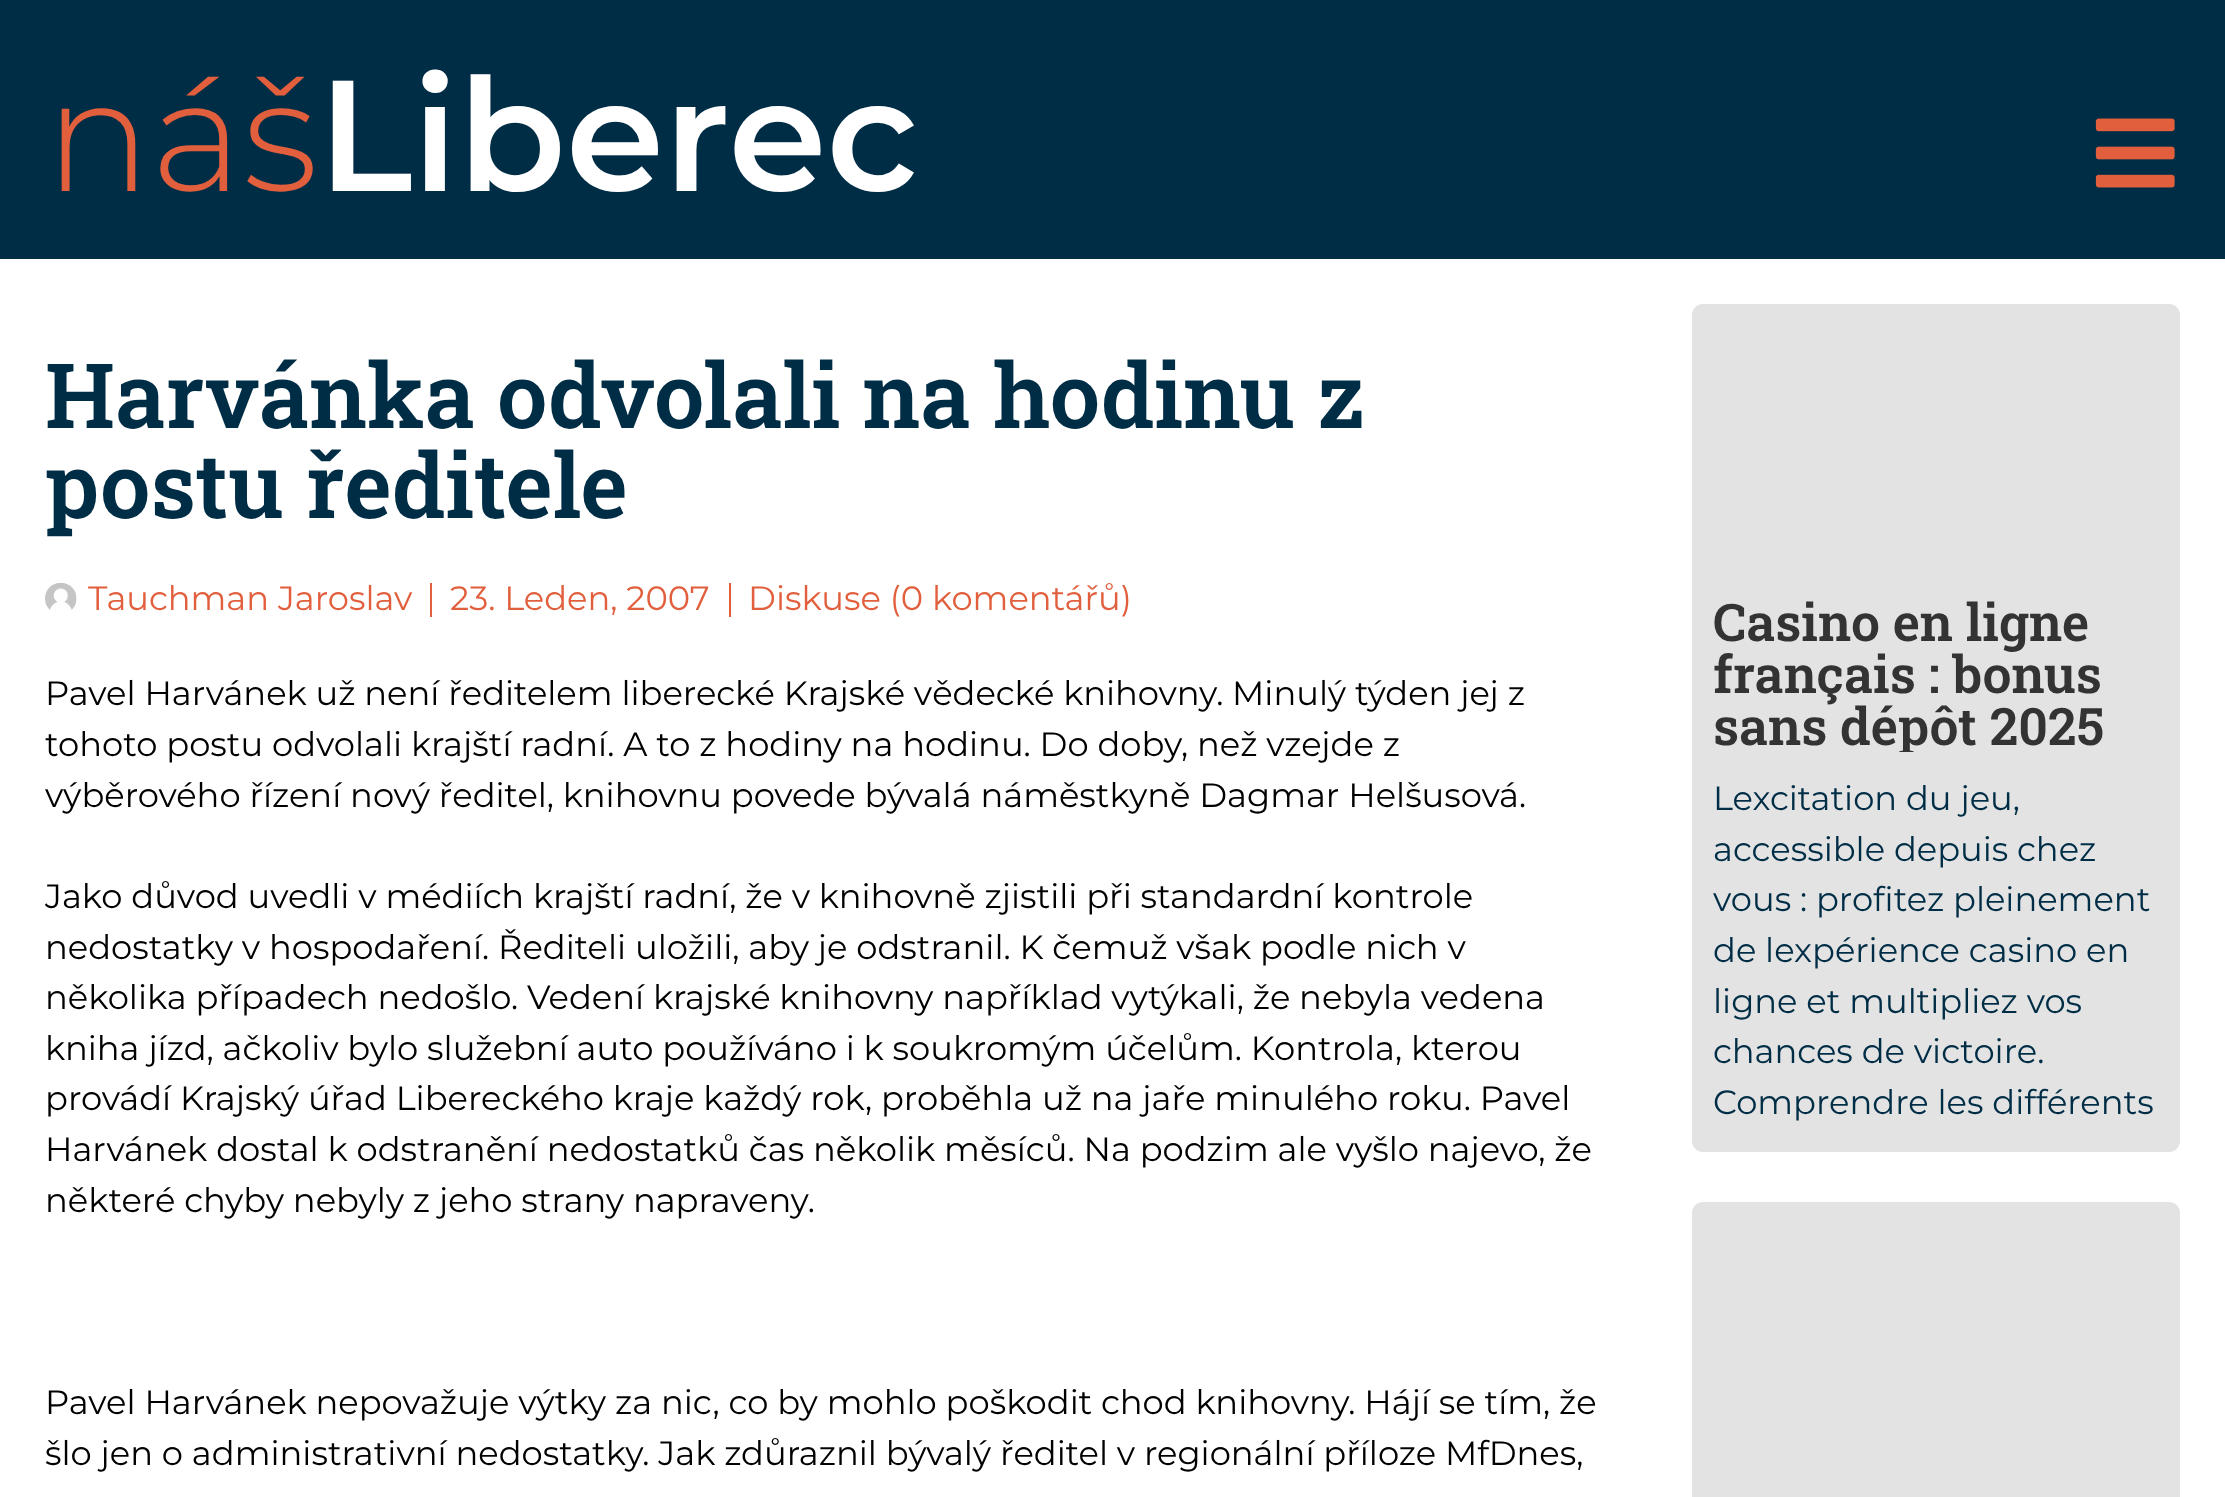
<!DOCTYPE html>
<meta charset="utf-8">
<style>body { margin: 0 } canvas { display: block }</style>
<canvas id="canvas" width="2225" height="1497"></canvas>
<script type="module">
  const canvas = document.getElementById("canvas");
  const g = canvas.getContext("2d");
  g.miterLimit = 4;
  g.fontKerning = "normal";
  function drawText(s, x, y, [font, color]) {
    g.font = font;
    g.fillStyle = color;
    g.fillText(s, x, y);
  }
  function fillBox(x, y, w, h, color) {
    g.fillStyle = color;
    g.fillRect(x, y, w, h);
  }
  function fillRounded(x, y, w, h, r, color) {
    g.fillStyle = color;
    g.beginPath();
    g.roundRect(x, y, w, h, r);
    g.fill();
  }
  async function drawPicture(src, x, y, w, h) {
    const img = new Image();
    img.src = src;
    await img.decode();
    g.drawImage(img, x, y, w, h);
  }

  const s1 = ["300 157.5px Montserrat", "#E15F3C"];
  const s2 = ["600 157.5px Montserrat", "#FFFFFF"];
  const s3 = ["600 90px Roboto Slab", "#002D46"];
  const s4 = ["33.75px Montserrat", "#E15F3C"];
  const s5 = ["33.75px Montserrat", "#000000"];
  const s6 = ["600 51.75px Roboto Slab", "#333333"];
  const s7 = ["33.75px Montserrat", "#002D46"];

  fillBox(0, 0, 2225, 1497, "#FFFFFF");
  fillBox(0, 0, 2225, 259, "#002D46");
  drawText("náš", 45, 191, s1);
  drawText("Liberec", 318, 191, s2);
  await drawPicture("pic1.png", 2095, 118, 80, 70);
  drawText("Harvánka odvolali na hodinu z", 45, 428, s3);
  drawText("postu ředitele", 45, 518, s3);
  await drawPicture("pic2.png", 45, 583, 32, 27);
  drawText("Tauchman Jaroslav", 88, 610, s4);
  fillBox(430, 583, 2, 34, "#E15F3C");
  drawText("23. Leden, 2007", 450, 610, s4);
  fillBox(729, 583, 2, 34, "#E15F3C");
  drawText("Diskuse (0 komentářů)", 748, 610, s4);
  drawText("Pavel Harvánek už není ředitelem liberecké Krajské vědecké knihovny. Minulý týden jej z", 45, 705, s5);
  drawText("tohoto postu odvolali krajští radní. A to z hodiny na hodinu. Do doby, než vzejde z", 45, 756, s5);
  drawText("výběrového řízení nový ředitel, knihovnu povede bývalá náměstkyně Dagmar Helšusová.", 45, 807, s5);
  drawText("Jako důvod uvedli v médiích krajští radní, že v knihovně zjistili při standardní kontrole", 45, 908, s5);
  drawText("nedostatky v hospodaření. Řediteli uložili, aby je odstranil. K čemuž však podle nich v", 45, 959, s5);
  drawText("několika případech nedošlo. Vedení krajské knihovny například vytýkali, že nebyla vedena", 45, 1009, s5);
  drawText("kniha jízd, ačkoliv bylo služební auto používáno i k soukromým účelům. Kontrola, kterou", 45, 1060, s5);
  drawText("provádí Krajský úřad Libereckého kraje každý rok, proběhla už na jaře minulého roku. Pavel", 45, 1110, s5);
  drawText("Harvánek dostal k odstranění nedostatků čas několik měsíců. Na podzim ale vyšlo najevo, že", 45, 1161, s5);
  drawText("některé chyby nebyly z jeho strany napraveny.", 45, 1212, s5);
  drawText("Pavel Harvánek nepovažuje výtky za nic, co by mohlo poškodit chod knihovny. Hájí se tím, že", 45, 1414, s5);
  drawText("šlo jen o administrativní nedostatky. Jak zdůraznil bývalý ředitel v regionální příloze MfDnes,", 45, 1465, s5);
  fillRounded(1692, 304, 488, 848, 11, "#E3E3E3");
  drawText("Casino en ligne", 1713, 641, s6);
  drawText("français : bonus", 1713, 693, s6);
  g.save();
  g.beginPath();
  g.rect(1715, 596, 443, 156);
  g.clip();
  drawText("sans dépôt 2025", 1713, 745, s6);
  g.restore();
  drawText("Lexcitation du jeu,", 1713, 810, s7);
  drawText("accessible depuis chez", 1713, 861, s7);
  drawText("vous : profitez pleinement", 1713, 911, s7);
  drawText("de lexpérience casino en", 1713, 962, s7);
  drawText("ligne et multipliez vos", 1713, 1013, s7);
  drawText("chances de victoire.", 1713, 1063, s7);
  drawText("Comprendre les différents", 1713, 1114, s7);
  fillRounded(1692, 1202, 488, 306, 11, "#E3E3E3");
</script>
